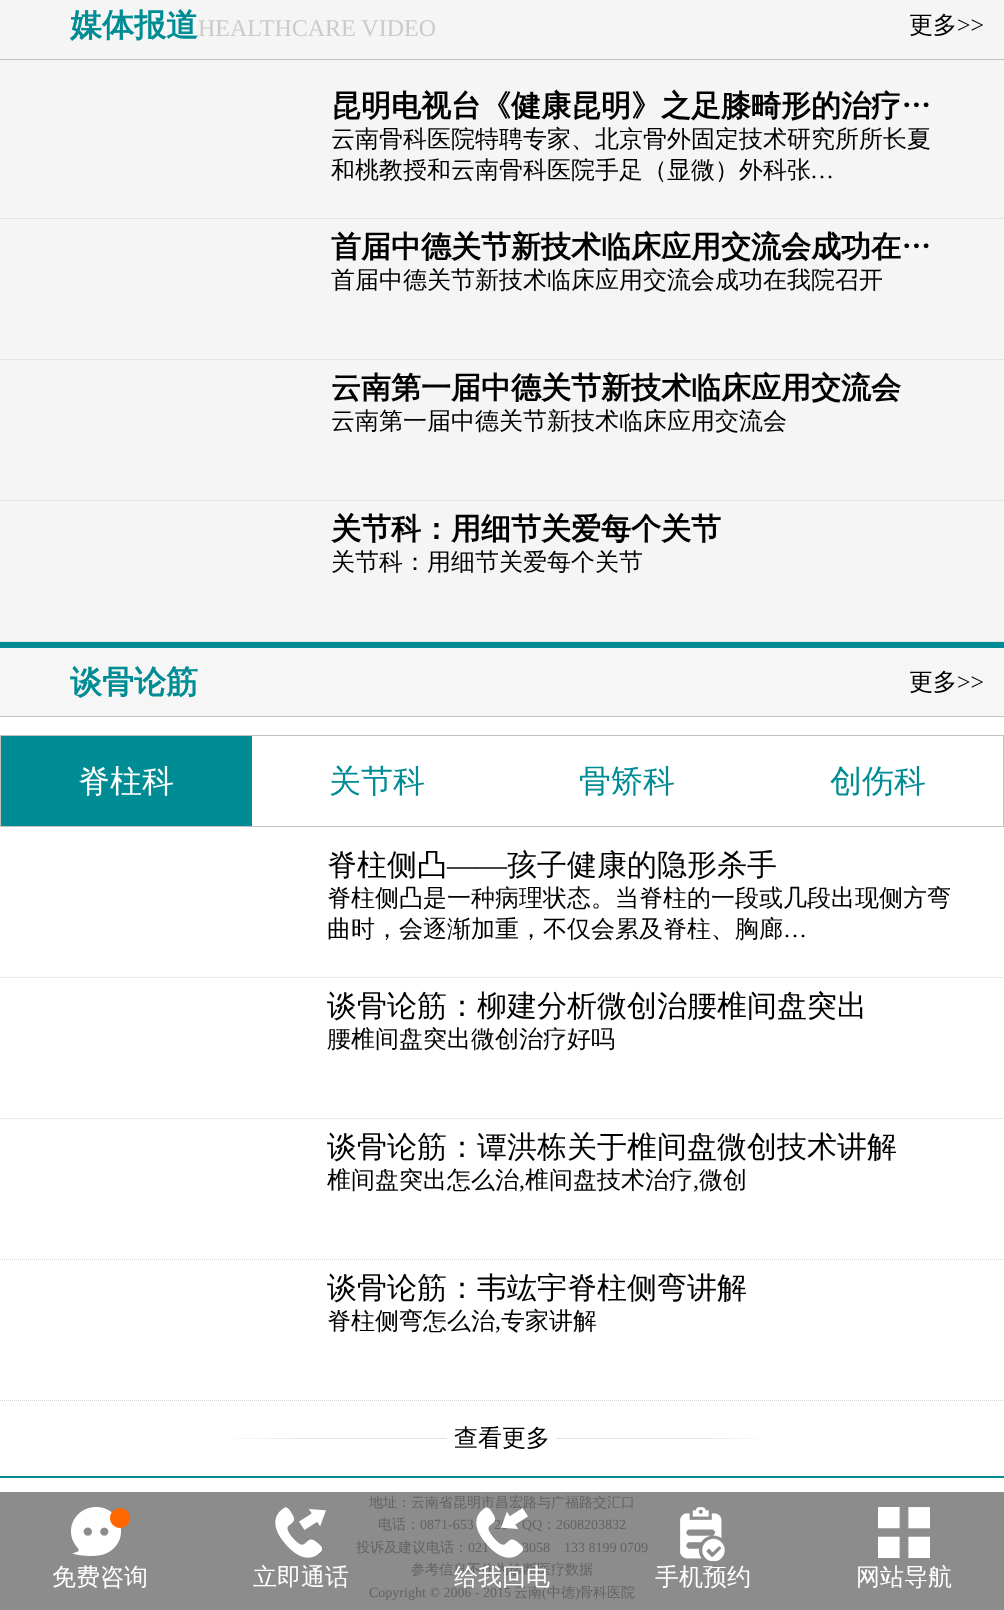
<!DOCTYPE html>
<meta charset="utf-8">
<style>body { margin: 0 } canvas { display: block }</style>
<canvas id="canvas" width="1004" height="1610"></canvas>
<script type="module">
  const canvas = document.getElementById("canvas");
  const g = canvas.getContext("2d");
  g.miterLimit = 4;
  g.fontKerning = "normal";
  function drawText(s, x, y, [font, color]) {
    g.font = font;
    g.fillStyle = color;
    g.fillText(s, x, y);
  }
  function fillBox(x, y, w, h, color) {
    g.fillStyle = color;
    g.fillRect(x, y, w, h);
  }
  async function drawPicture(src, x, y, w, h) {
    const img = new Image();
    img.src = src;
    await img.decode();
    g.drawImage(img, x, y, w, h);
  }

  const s1 = ["bold 32px WenQuanYi Zen Hei", "#008C94"];
  const s2 = ["24px Liberation Serif", "#CBCBCB"];
  const s3 = ["500 24px WenQuanYi Zen Hei", "#000000"];
  const s4 = ["24px Liberation Serif", "#000000"];
  const s5 = ["bold 30px WenQuanYi Zen Hei", "#000000"];
  const s6 = ["500 32px WenQuanYi Zen Hei", "#FFFFFF"];
  const s7 = ["500 32px WenQuanYi Zen Hei", "#008C94"];
  const s8 = ["500 30px WenQuanYi Zen Hei", "#000000"];
  const s9 = ["30px Liberation Serif", "#000000"];
  const s10 = ["500 14px WenQuanYi Zen Hei", "#636363"];
  const s11 = ["14px Liberation Serif", "#636363"];
  const s12 = ["500 24px WenQuanYi Zen Hei", "#FFFFFF"];

  fillBox(0, 0, 1004, 1610, "#FFFFFF");
  fillBox(0, 1492, 1004, 118, "#8C8C8C");
  fillBox(0, 0, 1004, 642, "#F5F5F5");
  fillBox(0, 59, 1004, 1, "#C1C1C1");
  drawText("媒体报道", 70, 36, s1);
  drawText("HEALTHCARE VIDEO", 198, 36, s2);
  drawText("更多", 909, 33, s3);
  drawText(">>", 957, 33, s4);
  g.beginPath();
  g.moveTo(0, 218.5);
  g.lineTo(1004, 218.5);
  g.strokeStyle = "#D4D4D4";
  g.setLineDash([1, 1]);
  g.stroke();
  drawText("昆明电视台《健康昆明》之足膝畸形的治疗…", 331, 116, s5);
  drawText("云南骨科医院特聘专家、北京骨外固定技术研究所所长夏", 331, 147, s3);
  drawText("和桃教授和云南骨科医院手足（显微）外科张", 331, 178, s3);
  drawText("…", 810, 178, s4);
  g.beginPath();
  g.moveTo(0, 359.5);
  g.lineTo(1004, 359.5);
  g.stroke();
  drawText("首届中德关节新技术临床应用交流会成功在…", 331, 257, s5);
  drawText("首届中德关节新技术临床应用交流会成功在我院召开", 331, 288, s3);
  g.beginPath();
  g.moveTo(0, 500.5);
  g.lineTo(1004, 500.5);
  g.stroke();
  drawText("云南第一届中德关节新技术临床应用交流会", 331, 398, s5);
  drawText("云南第一届中德关节新技术临床应用交流会", 331, 429, s3);
  g.beginPath();
  g.moveTo(0, 641.5);
  g.lineTo(1004, 641.5);
  g.stroke();
  drawText("关节科：用细节关爱每个关节", 331, 539, s5);
  drawText("关节科：用细节关爱每个关节", 331, 570, s3);
  fillBox(0, 648, 1004, 68, "#F6F6F6");
  fillBox(0, 642, 1004, 6, "#008C94");
  fillBox(0, 716, 1004, 1, "#C1C1C1");
  drawText("谈骨论筋", 70, 693, s1);
  drawText("更多", 909, 690, s3);
  drawText(">>", 957, 690, s4);
  g.strokeStyle = "#C1C1C1";
  g.setLineDash([]);
  g.strokeRect(0.5, 735.5, 1003, 91);
  fillBox(1, 736, 251, 90, "#008C94");
  drawText("脊柱科", 78, 792, s6);
  drawText("关节科", 329, 792, s7);
  drawText("骨矫科", 579, 792, s7);
  drawText("创伤科", 830, 792, s7);
  g.beginPath();
  g.moveTo(0, 977.5);
  g.lineTo(1004, 977.5);
  g.strokeStyle = "#D4D4D4";
  g.setLineDash([1, 1]);
  g.stroke();
  drawText("脊柱侧凸", 327, 875, s8);
  drawText("——", 447, 875, s9);
  drawText("孩子健康的隐形杀手", 507, 875, s8);
  drawText("脊柱侧凸是一种病理状态。当脊柱的一段或几段出现侧方弯", 327, 906, s3);
  drawText("曲时，会逐渐加重，不仅会累及脊柱、胸廊", 327, 937, s3);
  drawText("…", 783, 937, s4);
  g.beginPath();
  g.moveTo(0, 1118.5);
  g.lineTo(1004, 1118.5);
  g.stroke();
  drawText("谈骨论筋：柳建分析微创治腰椎间盘突出", 327, 1016, s8);
  drawText("腰椎间盘突出微创治疗好吗", 327, 1047, s3);
  g.beginPath();
  g.moveTo(0, 1259.5);
  g.lineTo(1004, 1259.5);
  g.stroke();
  drawText("谈骨论筋：谭洪栋关于椎间盘微创技术讲解", 327, 1157, s8);
  drawText("椎间盘突出怎么治", 327, 1188, s3);
  drawText(",", 519, 1188, s4);
  drawText("椎间盘技术治疗", 525, 1188, s3);
  drawText(",", 693, 1188, s4);
  drawText("微创", 699, 1188, s3);
  g.beginPath();
  g.moveTo(0, 1400.5);
  g.lineTo(1004, 1400.5);
  g.stroke();
  drawText("谈骨论筋：韦竑宇脊柱侧弯讲解", 327, 1298, s8);
  drawText("脊柱侧弯怎么治", 327, 1329, s3);
  drawText(",", 495, 1329, s4);
  drawText("专家讲解", 501, 1329, s3);
  await drawPicture("pic1.png", 229, 1438, 534, 1);
  drawText("查看更多", 454, 1446, s3);
  fillBox(0, 1476, 1004, 2, "#008C94");
  drawText("地址：云南省昆明市昌宏路与广福路交汇口", 369, 1507, s10);
  drawText("电话：", 378, 1529, s10);
  drawText("0871-653", 420, 1529, s11);
  drawText("20    QQ", 494, 1529, s11);
  drawText("：", 542, 1529, s10);
  drawText("2608203832", 556, 1529, s11);
  drawText("投诉及建议电话：", 356, 1552, s10);
  drawText("021", 468, 1552, s11);
  drawText("3058    133 8199 0709", 522, 1552, s11);
  drawText("参考信息不作为诊断医疗数据", 411, 1574, s10);
  drawText("Copyright © 2006 - 2015", 369, 1597, s11);
  drawText("云南", 514, 1597, s10);
  drawText("(", 542, 1597, s11);
  drawText("中德", 547, 1597, s10);
  drawText(")", 575, 1597, s11);
  drawText("骨科医院", 579, 1597, s10);
  await drawPicture("pic2.png", 71, 1507, 59, 49);
  drawText("免费咨询", 52, 1585, s12);
  await drawPicture("pic3.png", 275, 1507, 51, 51);
  drawText("立即通话", 253, 1585, s12);
  await drawPicture("pic4.png", 476, 1507, 52, 51);
  drawText("给我回电", 454, 1585, s12);
  await drawPicture("pic5.png", 680, 1507, 45, 54);
  drawText("手机预约", 655, 1585, s12);
  await drawPicture("pic6.png", 878, 1507, 52, 51);
  drawText("网站导航", 856, 1585, s12);
</script>
